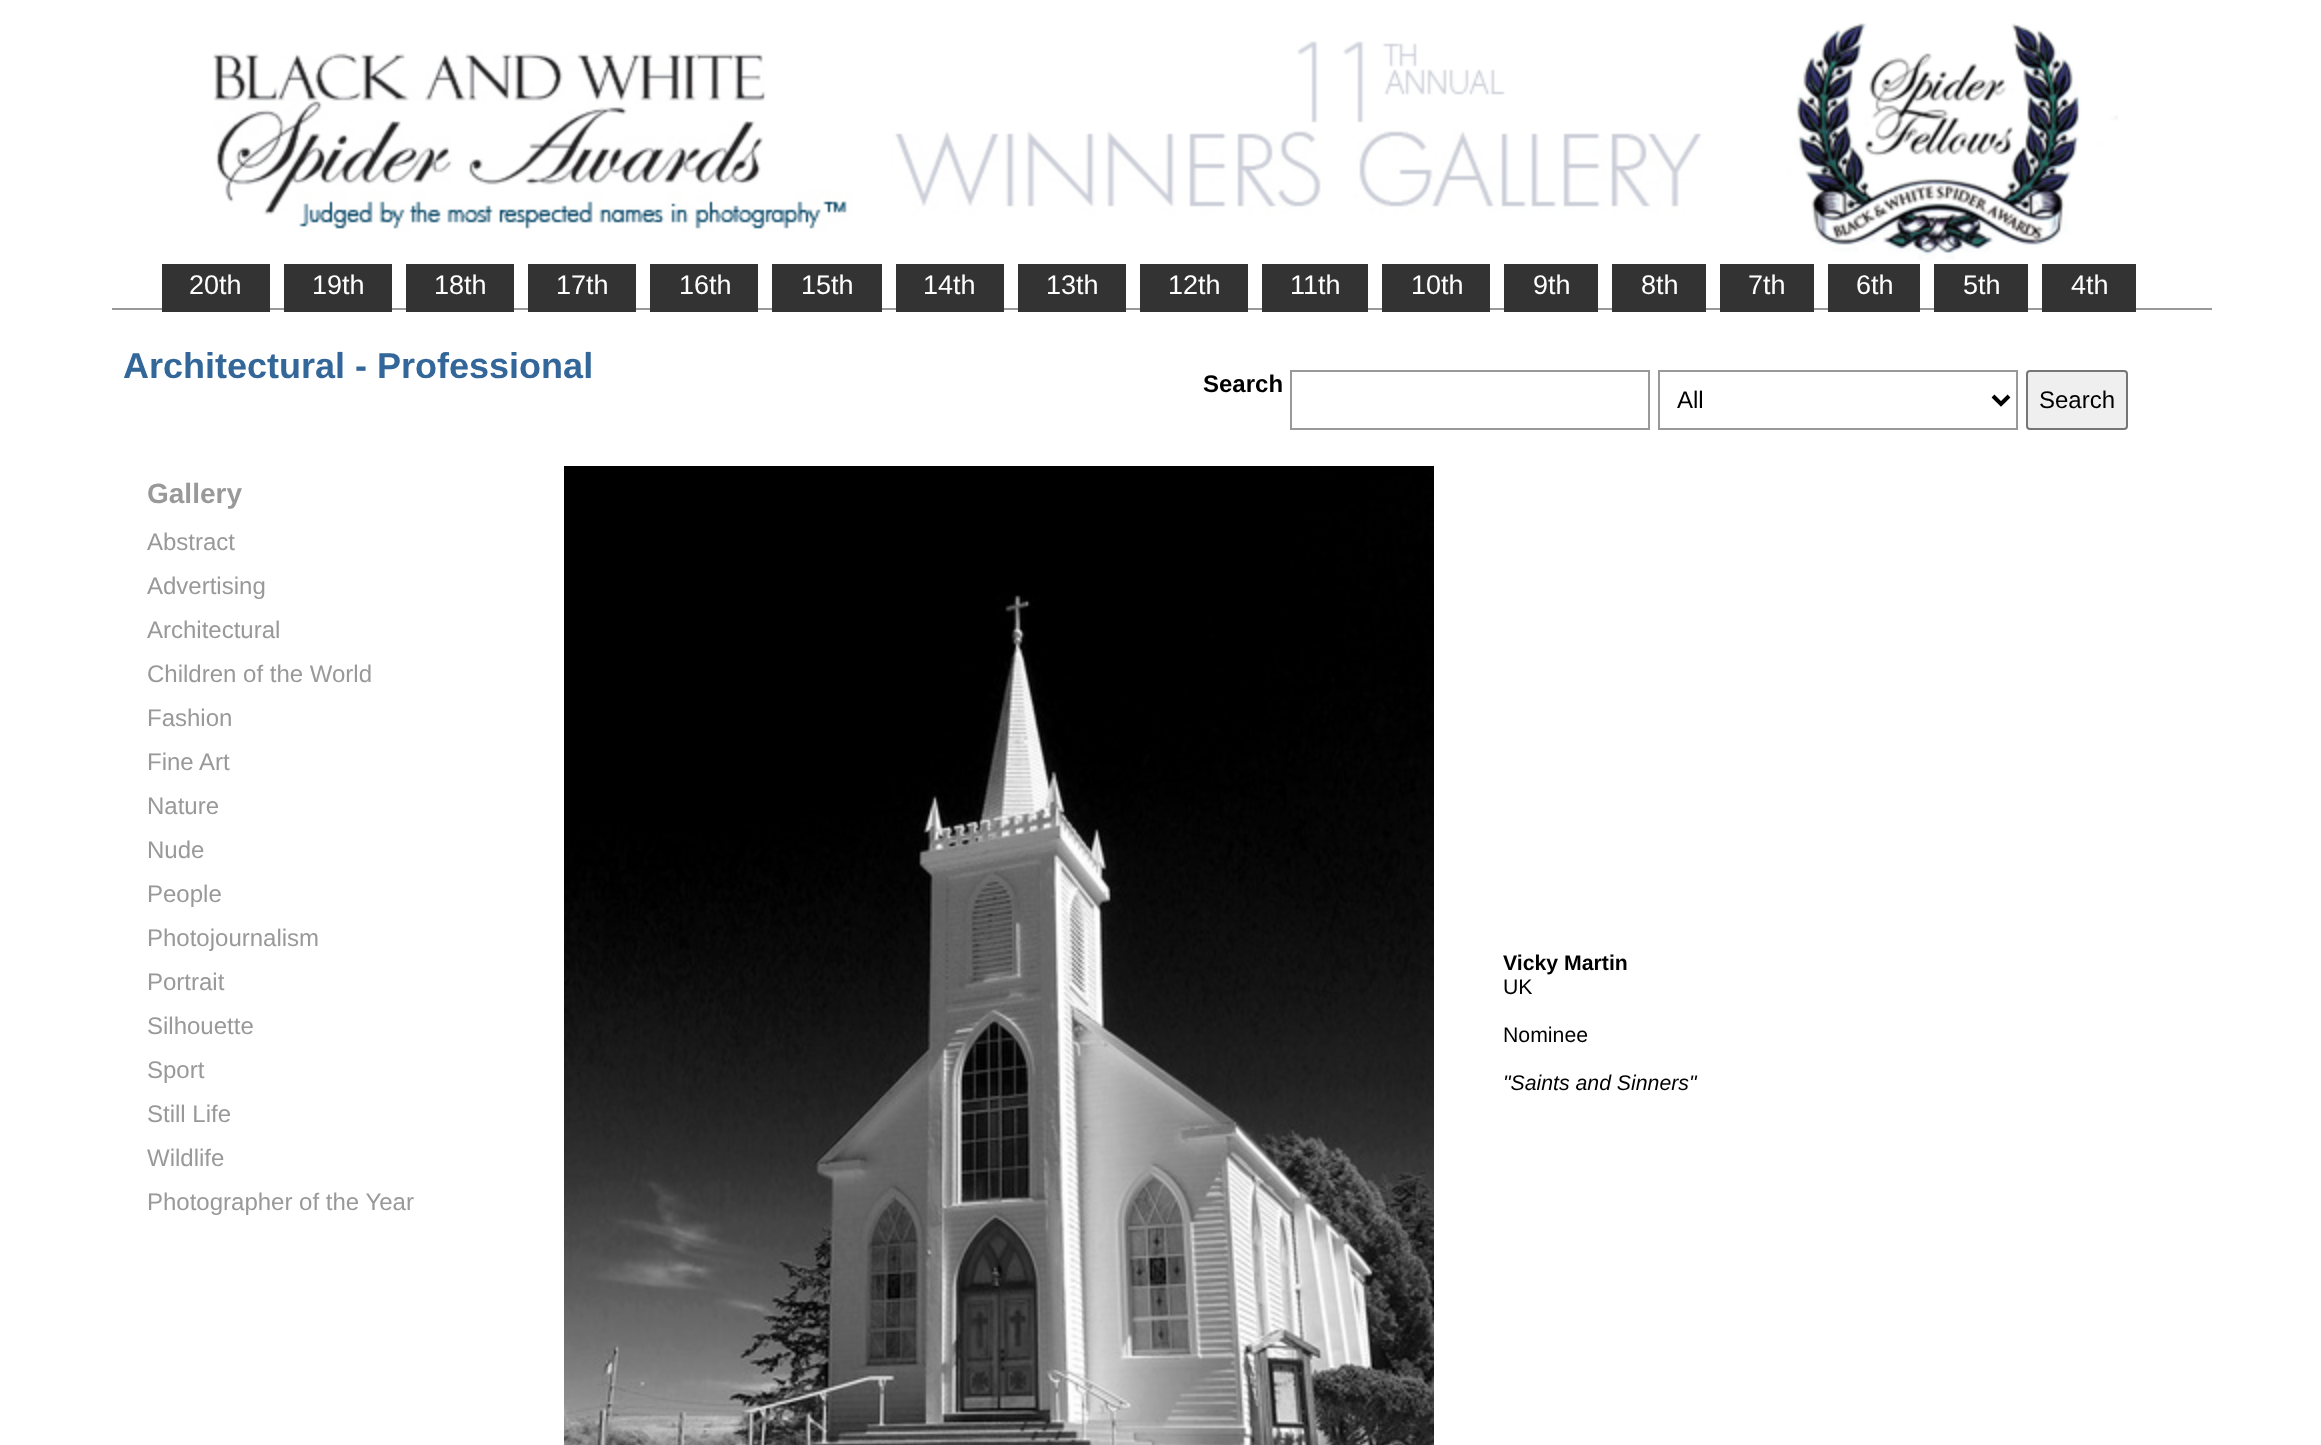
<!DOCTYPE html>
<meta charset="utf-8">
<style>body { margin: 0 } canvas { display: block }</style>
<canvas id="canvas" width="2321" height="1445"></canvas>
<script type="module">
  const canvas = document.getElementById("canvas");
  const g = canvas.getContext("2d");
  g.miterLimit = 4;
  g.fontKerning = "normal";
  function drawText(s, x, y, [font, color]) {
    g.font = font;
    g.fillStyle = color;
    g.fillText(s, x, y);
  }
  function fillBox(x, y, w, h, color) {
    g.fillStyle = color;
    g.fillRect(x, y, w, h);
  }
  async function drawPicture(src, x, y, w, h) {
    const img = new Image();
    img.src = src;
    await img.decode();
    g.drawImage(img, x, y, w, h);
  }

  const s1 = ["27px Liberation Sans", "#FFFFFF"];
  const s2 = ["bold 36px Liberation Sans", "#336699"];
  const s3 = ["bold 24px Liberation Sans", "#000000"];
  const s4 = ["24px Liberation Sans", "#000000"];
  const s5 = ["bold 28px Liberation Sans", "#999999"];
  const s6 = ["24px Liberation Sans", "#999999"];
  const s7 = ["bold 21.25px Liberation Sans", "#000000"];
  const s8 = ["21.25px Liberation Sans", "#000000"];
  const s9 = ["italic 21.25px Liberation Sans", "#000000"];

  fillBox(0, 0, 2321, 1445, "#FFFFFF");
  await drawPicture("pic1.png", 213, 23, 1905, 237);
  fillBox(112, 308, 2100, 2, "#999999");
  fillBox(162, 264, 108, 48, "#333333");
  drawText("20th", 189, 294, s1);
  fillBox(284, 264, 108, 48, "#333333");
  drawText("19th", 312, 294, s1);
  fillBox(406, 264, 108, 48, "#333333");
  drawText("18th", 434, 294, s1);
  fillBox(528, 264, 108, 48, "#333333");
  drawText("17th", 556, 294, s1);
  fillBox(650, 264, 108, 48, "#333333");
  drawText("16th", 679, 294, s1);
  fillBox(772, 264, 110, 48, "#333333");
  drawText("15th", 801, 294, s1);
  fillBox(896, 264, 108, 48, "#333333");
  drawText("14th", 923, 294, s1);
  fillBox(1018, 264, 108, 48, "#333333");
  drawText("13th", 1046, 294, s1);
  fillBox(1140, 264, 108, 48, "#333333");
  drawText("12th", 1168, 294, s1);
  fillBox(1262, 264, 106, 48, "#333333");
  drawText("11th", 1290, 294, s1);
  fillBox(1382, 264, 108, 48, "#333333");
  drawText("10th", 1411, 294, s1);
  fillBox(1504, 264, 94, 48, "#333333");
  drawText("9th", 1533, 294, s1);
  fillBox(1612, 264, 94, 48, "#333333");
  drawText("8th", 1641, 294, s1);
  fillBox(1720, 264, 94, 48, "#333333");
  drawText("7th", 1748, 294, s1);
  fillBox(1828, 264, 92, 48, "#333333");
  drawText("6th", 1856, 294, s1);
  fillBox(1934, 264, 94, 48, "#333333");
  drawText("5th", 1963, 294, s1);
  fillBox(2042, 264, 94, 48, "#333333");
  drawText("4th", 2071, 294, s1);
  drawText("Architectural - Professional", 123, 378, s2);
  drawText("Search", 1203, 392, s3);
  g.strokeStyle = "#999999";
  g.lineWidth = 2;
  g.strokeRect(1291, 371, 358, 58);
  g.strokeRect(1659, 371, 358, 58);
  g.beginPath();
  g.moveTo(1993, 396);
  g.lineTo(2001, 404);
  g.lineTo(2009, 396);
  g.strokeStyle = "#000000";
  g.lineWidth = 4;
  g.stroke();
  drawText("All", 1677, 408, s4);
  g.fillStyle = "#EFEFEF";
  g.beginPath();
  g.roundRect(2027, 371, 100, 58, 3);
  g.fill();
  g.strokeStyle = "#767676";
  g.lineWidth = 2;
  g.stroke();
  drawText("Search", 2039, 408, s4);
  drawText("Gallery", 147, 503, s5);
  drawText("Abstract", 147, 550, s6);
  drawText("Advertising", 147, 594, s6);
  drawText("Architectural", 147, 638, s6);
  drawText("Children of the World", 147, 682, s6);
  drawText("Fashion", 147, 726, s6);
  drawText("Fine Art", 147, 770, s6);
  drawText("Nature", 147, 814, s6);
  drawText("Nude", 147, 858, s6);
  drawText("People", 147, 902, s6);
  drawText("Photojournalism", 147, 946, s6);
  drawText("Portrait", 147, 990, s6);
  drawText("Silhouette", 147, 1034, s6);
  drawText("Sport", 147, 1078, s6);
  drawText("Still Life", 147, 1122, s6);
  drawText("Wildlife", 147, 1166, s6);
  drawText("Photographer of the Year", 147, 1210, s6);
  await drawPicture("pic2.png", 564, 466, 870, 979);
  drawText("Vicky Martin", 1503, 970, s7);
  drawText("UK", 1503, 994, s8);
  drawText("Nominee", 1503, 1042, s8);
  drawText("\"Saints and Sinners\"", 1503, 1090, s9);
</script>
